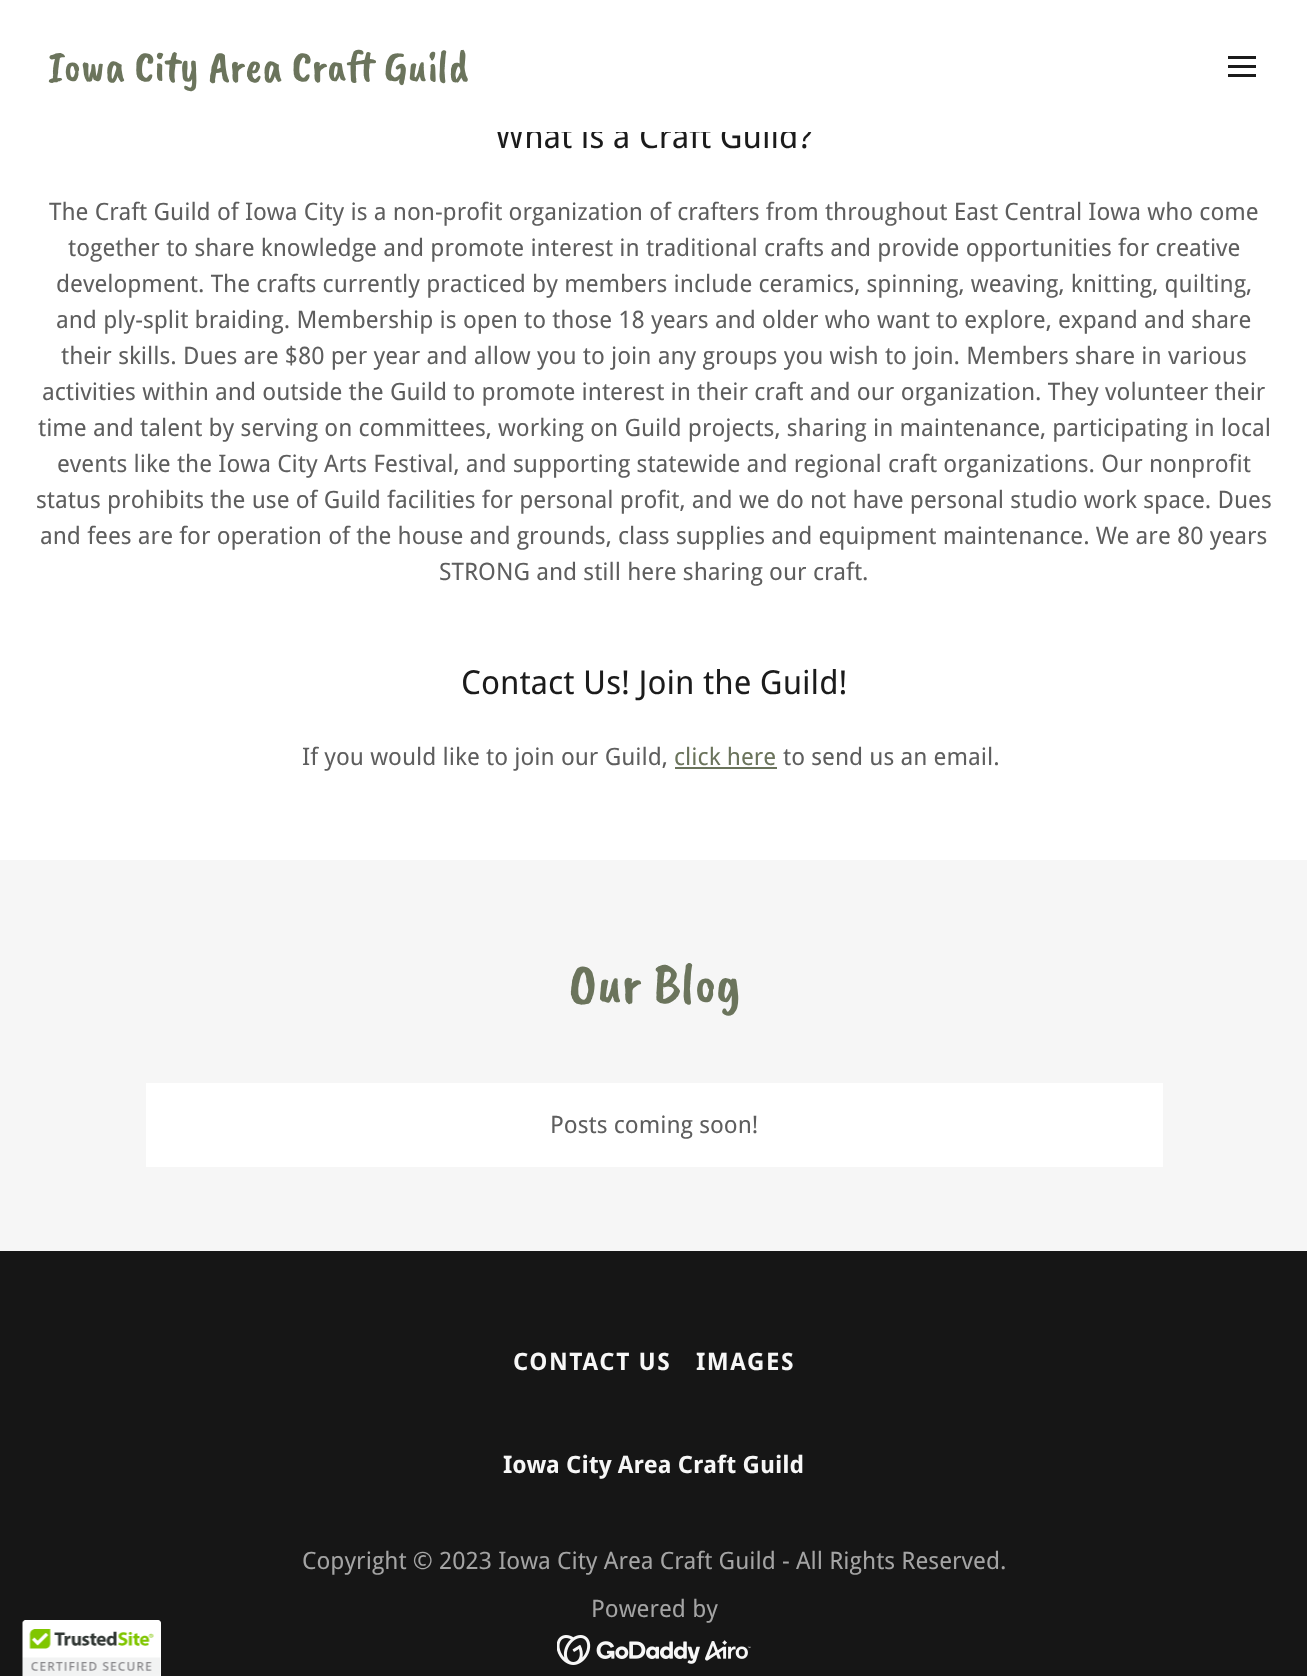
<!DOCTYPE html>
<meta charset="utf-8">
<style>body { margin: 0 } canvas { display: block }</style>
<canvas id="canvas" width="1307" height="1676"></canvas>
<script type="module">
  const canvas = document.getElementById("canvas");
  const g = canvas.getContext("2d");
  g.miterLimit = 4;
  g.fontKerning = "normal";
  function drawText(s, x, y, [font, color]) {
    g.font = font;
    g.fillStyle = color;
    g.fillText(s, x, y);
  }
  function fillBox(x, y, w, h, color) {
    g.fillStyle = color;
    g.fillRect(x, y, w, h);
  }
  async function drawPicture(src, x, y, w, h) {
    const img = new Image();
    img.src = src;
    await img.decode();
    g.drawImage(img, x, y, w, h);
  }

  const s1 = ["33px Droid Sans", "#1B1B1B"];
  const s2 = ["45px Caveat Brush", "#6B745C"];
  const s3 = ["24px Droid Sans", "#5E5E5E"];
  const s4 = ["24px Droid Sans", "#6B745C"];
  const s5 = ["57px Caveat Brush", "#6B745C"];
  const s6 = ["bold 24px Droid Sans", "#F7F7F7"];
  const s7 = ["24px Droid Sans", "#A4A4A4"];

  fillBox(0, 0, 1307, 1676, "#161616");
  fillBox(0, 132, 1307, 728, "#FFFFFF");
  drawText("What is a Craft Guild?", 495, 148, s1);
  fillBox(0, 0, 1307, 132, "#FFFFFF");
  drawText("Iowa City Area Craft Guild", 48, 81, s2);
  fillBox(1228, 56, 28, 3, "#1B1B1B");
  fillBox(1228, 65, 28, 3, "#1B1B1B");
  fillBox(1228, 74, 28, 3, "#1B1B1B");
  drawText("The Craft Guild of Iowa City is a non-profit organization of crafters from throughout East Central Iowa who come", 49, 220, s3);
  drawText("together to share knowledge and promote interest in traditional crafts and provide opportunities for creative", 68, 256, s3);
  drawText("development. The crafts currently practiced by members include ceramics, spinning, weaving, knitting, quilting,", 56, 292, s3);
  drawText("and ply-split braiding. Membership is open to those 18 years and older who want to explore, expand and share", 56, 328, s3);
  drawText("their skills. Dues are $80 per year and allow you to join any groups you wish to join. Members share in various", 61, 364, s3);
  drawText("activities within and outside the Guild to promote interest in their craft and our organization. They volunteer their", 42, 400, s3);
  drawText("time and talent by serving on committees, working on Guild projects, sharing in maintenance, participating in local", 38, 436, s3);
  drawText("events like the Iowa City Arts Festival, and supporting statewide and regional craft organizations. Our nonprofit", 57, 472, s3);
  drawText("status prohibits the use of Guild facilities for personal profit, and we do not have personal studio work space. Dues", 36, 508, s3);
  drawText("and fees are for operation of the house and grounds, class supplies and equipment maintenance. We are 80 years", 40, 544, s3);
  drawText("STRONG and still here sharing our craft.", 439, 580, s3);
  drawText("Contact Us! Join the Guild!", 461, 694, s1);
  drawText("If you would like to join our Guild,", 302, 765, s3);
  drawText("click here", 674, 765, s4);
  fillBox(675, 767, 102, 2, "#6B745C");
  drawText("to send us an email.", 783, 765, s3);
  fillBox(0, 860, 1307, 391, "#F6F6F6");
  drawText("Our Blog", 569, 1002, s5);
  fillBox(146, 1083, 1017, 84, "#FFFFFF");
  drawText("Posts coming soon!", 550, 1133, s3);
  g.letterSpacing = "1.5px";
  drawText("CONTACT US", 513, 1370, s6);
  drawText("IMAGES", 696, 1370, s6);
  g.letterSpacing = "0px";
  drawText("Iowa City Area Craft Guild", 503, 1473, s6);
  drawText("Copyright © 2023 Iowa City Area Craft Guild - All Rights Reserved.", 302, 1569, s7);
  drawText("Powered by", 591, 1617, s7);
  await drawPicture("pic1.png", 557, 1635, 194, 30);
  g.fillStyle = "#FFFFFF";
  g.beginPath();
  g.moveTo(26, 1620);
  g.lineTo(158, 1620);
  g.bezierCurveTo(159.5, 1620, 161, 1621.5, 161, 1623);
  g.lineTo(161, 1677);
  g.lineTo(23, 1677);
  g.lineTo(23, 1623);
  g.bezierCurveTo(23, 1621.5, 24.5, 1620, 26, 1620);
  g.closePath();
  g.fill();
  await drawPicture("pic2.png", 22, 1620, 139, 56);
</script>
